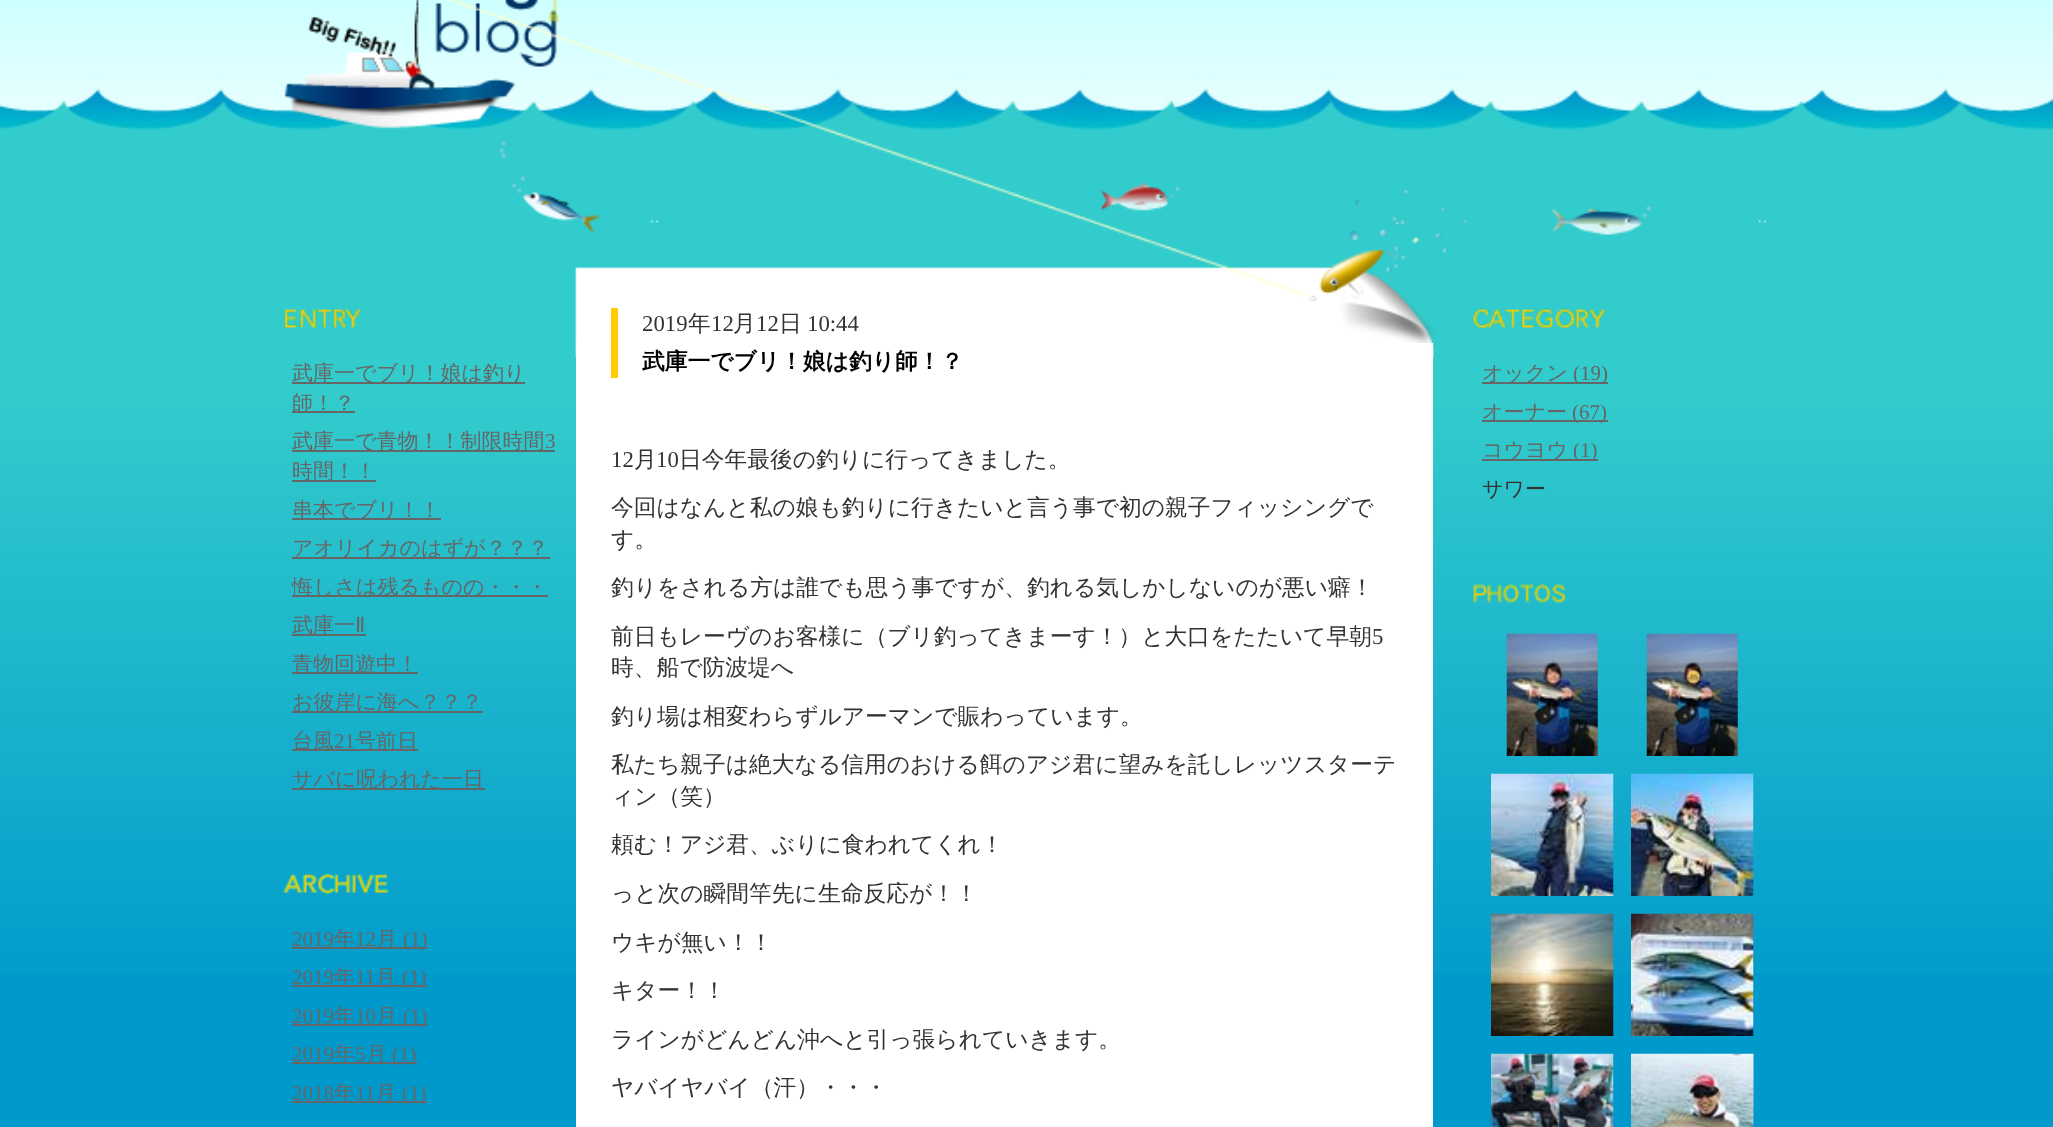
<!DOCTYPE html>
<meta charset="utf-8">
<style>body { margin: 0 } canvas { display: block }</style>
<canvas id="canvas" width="2053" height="1127"></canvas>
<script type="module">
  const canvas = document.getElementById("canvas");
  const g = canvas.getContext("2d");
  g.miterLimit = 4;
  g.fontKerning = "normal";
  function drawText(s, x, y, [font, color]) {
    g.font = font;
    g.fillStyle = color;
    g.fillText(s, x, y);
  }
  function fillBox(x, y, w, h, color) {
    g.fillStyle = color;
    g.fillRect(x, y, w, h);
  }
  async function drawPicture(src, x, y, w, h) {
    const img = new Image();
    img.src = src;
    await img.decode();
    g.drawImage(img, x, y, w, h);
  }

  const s1 = ["500 21px WenQuanYi Zen Hei", "#666666"];
  const s2 = ["21px Liberation Serif", "#666666"];
  const s3 = ["21px DejaVu Sans", "#666666"];
  const s4 = ["22.75px Liberation Serif", "#333333"];
  const s5 = ["500 22.75px WenQuanYi Zen Hei", "#333333"];
  const s6 = ["bold 22.75px WenQuanYi Zen Hei", "#000000"];
  const s7 = ["500 21px WenQuanYi Zen Hei", "#333333"];

  fillBox(0, 0, 2053, 1127, "#0099CC");
  await drawPicture("pic1.png", 0, 0, 2053, 973);
  await drawPicture("pic2.png", 284, 0, 555, 133);
  await drawPicture("pic3.png", 498, 133, 1153, 224);
  await drawPicture("pic4.png", 283, 309, 78, 19);
  fillBox(292, 382, 233, 2, "#666666");
  drawText("武庫一でブリ！娘は釣り", 292, 380, s1);
  fillBox(292, 411, 63, 2, "#666666");
  drawText("師！？", 292, 410, s1);
  fillBox(292, 450, 263, 2, "#666666");
  drawText("武庫一で青物！！制限時間", 292, 448, s1);
  drawText("3", 545, 448, s2);
  fillBox(292, 480, 84, 2, "#666666");
  drawText("時間！！", 292, 478, s1);
  fillBox(292, 518, 149, 2, "#666666");
  drawText("串本でブリ！！", 292, 517, s1);
  fillBox(292, 557, 258, 2, "#666666");
  drawText("アオリイカのはずが？？？", 292, 555, s1);
  fillBox(292, 595, 256, 2, "#666666");
  drawText("悔しさは残るものの・・・", 292, 594, s1);
  fillBox(292, 634, 74, 2, "#666666");
  drawText("武庫一", 292, 632, s1);
  drawText("Ⅱ", 355, 632, s3);
  fillBox(292, 672, 126, 2, "#666666");
  drawText("青物回遊中！", 292, 671, s1);
  fillBox(292, 711, 191, 2, "#666666");
  drawText("お彼岸に海へ？？？", 292, 709, s1);
  fillBox(292, 749, 126, 2, "#666666");
  drawText("台風", 292, 748, s1);
  drawText("21", 334, 748, s2);
  drawText("号前日", 355, 748, s1);
  fillBox(292, 788, 193, 2, "#666666");
  drawText("サバに呪われた一日", 292, 786, s1);
  await drawPicture("pic5.png", 283, 873, 106, 22);
  drawText("2019", 292, 946, s2);
  fillBox(292, 947, 135, 2, "#666666");
  drawText("年", 334, 946, s1);
  drawText("12", 355, 946, s2);
  drawText("月", 376, 946, s1);
  drawText("(1)", 403, 946, s2);
  drawText("2019", 292, 984, s2);
  fillBox(292, 985, 135, 2, "#666666");
  drawText("年", 334, 984, s1);
  drawText("11", 355, 984, s2);
  drawText("月", 375, 984, s1);
  drawText("(1)", 402, 984, s2);
  drawText("2019", 292, 1023, s2);
  fillBox(292, 1024, 135, 2, "#666666");
  drawText("年", 334, 1023, s1);
  drawText("10", 355, 1023, s2);
  drawText("月", 376, 1023, s1);
  drawText("(1)", 403, 1023, s2);
  drawText("2019", 292, 1061, s2);
  fillBox(292, 1062, 125, 2, "#666666");
  drawText("年", 334, 1061, s1);
  drawText("5", 355, 1061, s2);
  drawText("月", 366, 1061, s1);
  drawText("(1)", 392, 1061, s2);
  drawText("2018", 292, 1100, s2);
  fillBox(292, 1101, 135, 2, "#666666");
  drawText("年", 334, 1100, s1);
  drawText("11", 355, 1100, s2);
  drawText("月", 375, 1100, s1);
  drawText("(1)", 402, 1100, s2);
  fillBox(576, 343, 857, 784, "#FFFFFF");
  fillBox(611, 308, 7, 70, "#FFCC00");
  drawText("2019", 642, 331, s4);
  drawText("年", 688, 331, s5);
  drawText("12", 711, 331, s4);
  drawText("月", 733, 331, s5);
  drawText("12", 756, 331, s4);
  drawText("日", 779, 331, s5);
  drawText("10:44", 807, 331, s4);
  drawText("武庫一でブリ！娘は釣り師！？", 642, 369, s6);
  drawText("12", 611, 467, s4);
  drawText("月", 634, 467, s5);
  drawText("10", 656, 467, s4);
  drawText("日今年最後の釣りに行ってきました。", 679, 467, s5);
  drawText("今回はなんと私の娘も釣りに行きたいと言う事で初の親子フィッシングで", 611, 515, s5);
  drawText("す。", 611, 547, s5);
  drawText("釣りをされる方は誰でも思う事ですが、釣れる気しかしないのが悪い癖！", 611, 595, s5);
  drawText("前日もレーヴのお客様に（ブリ釣ってきまーす！）と大口をたたいて早朝", 611, 644, s5);
  drawText("5", 1372, 644, s4);
  drawText("時、船で防波堤へ", 611, 675, s5);
  drawText("釣り場は相変わらずルアーマンで賑わっています。", 611, 724, s5);
  drawText("私たち親子は絶大なる信用のおける餌のアジ君に望みを託しレッツスターテ", 611, 772, s5);
  drawText("ィン（笑）", 611, 804, s5);
  drawText("頼む！アジ君、ぶりに食われてくれ！", 611, 852, s5);
  drawText("っと次の瞬間竿先に生命反応が！！", 611, 901, s5);
  drawText("ウキが無い！！", 611, 950, s5);
  drawText("キター！！", 611, 998, s5);
  drawText("ラインがどんどん沖へと引っ張られていきます。", 611, 1047, s5);
  drawText("ヤバイヤバイ（汗）・・・", 611, 1095, s5);
  await drawPicture("pic6.png", 1473, 308, 132, 21);
  fillBox(1482, 382, 126, 2, "#666666");
  drawText("オックン", 1482, 380, s1);
  drawText("(19)", 1573, 380, s2);
  fillBox(1482, 420, 126, 2, "#666666");
  drawText("オーナー", 1482, 419, s1);
  drawText("(67)", 1572, 419, s2);
  fillBox(1482, 459, 116, 2, "#666666");
  drawText("コウヨウ", 1482, 457, s1);
  drawText("(1)", 1573, 457, s2);
  drawText("サワー", 1482, 496, s7);
  await drawPicture("pic7.png", 1473, 584, 94, 19);
  await drawPicture("pic8.png", 1506, 633, 92, 123);
  await drawPicture("pic9.png", 1646, 633, 92, 123);
  await drawPicture("pic10.png", 1491, 773, 123, 123);
  await drawPicture("pic11.png", 1631, 773, 123, 123);
  await drawPicture("pic12.png", 1491, 913, 123, 123);
  await drawPicture("pic13.png", 1631, 913, 123, 123);
  await drawPicture("pic14.png", 1491, 1053, 123, 74);
  await drawPicture("pic15.png", 1631, 1053, 123, 74);
</script>
